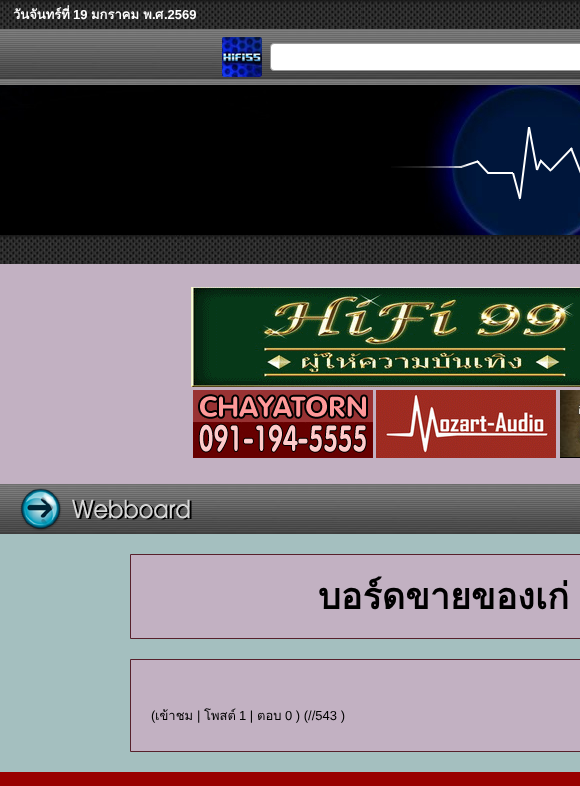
<!DOCTYPE html>
<meta charset="utf-8">
<style>body { margin: 0 } canvas { display: block }</style>
<canvas id="canvas" width="580" height="786"></canvas>
<script type="module">
  const canvas = document.getElementById("canvas");
  const g = canvas.getContext("2d");
  g.miterLimit = 4;
  g.fontKerning = "normal";
  function drawText(s, x, y, [font, color]) {
    g.font = font;
    g.fillStyle = color;
    g.fillText(s, x, y);
  }
  function fillBox(x, y, w, h, color) {
    g.fillStyle = color;
    g.fillRect(x, y, w, h);
  }
  async function drawPicture(src, x, y, w, h) {
    const img = new Image();
    img.src = src;
    await img.decode();
    g.drawImage(img, x, y, w, h);
  }

  const s1 = ["bold 13px Loma", "#FFFFFF"];
  const s2 = ["bold 13px Liberation Sans", "#FFFFFF"];
  const s3 = ["bold 36px Loma", "#000000"];
  const s4 = ["13px Liberation Sans", "#000000"];
  const s5 = ["13px Loma", "#000000"];

  fillBox(0, 0, 580, 786, "#000000");
  await drawPicture("pic1.png", 0, 85, 580, 35);
  await drawPicture("pic2.png", 0, 0, 580, 29);
  drawText("วันจันทร์ที่", 13, 19, s1);
  drawText("19", 73, 19, s2);
  drawText("มกราคม พ", 91, 19, s1);
  drawText(".", 152, 19, s2);
  drawText("ศ", 155, 19, s1);
  drawText(".2569", 164, 19, s2);
  await drawPicture("pic3.png", 0, 29, 580, 56);
  await drawPicture("pic4.png", 222, 37, 40, 40);
  g.beginPath();
  g.roundRect(270.5, 43.5, 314, 27, 3.5);
  g.fill();
  g.strokeStyle = "#999999";
  g.stroke();
  await drawPicture("pic5.png", 425, 85, 155, 150);
  await drawPicture("pic6.png", 391, 127, 189, 74);
  await drawPicture("pic2.png", 0, 235, 580, 29);
  fillBox(0, 264, 580, 220, "#C2B1C2");
  await drawPicture("pic7.png", 191, 287, 389, 100);
  await drawPicture("pic8.png", 193, 390, 180, 68);
  await drawPicture("pic9.png", 376, 390, 180, 68);
  await drawPicture("pic10.png", 560, 390, 20, 68);
  await drawPicture("pic11.png", 0, 484, 580, 50);
  await drawPicture("pic12.png", 20, 488, 172, 43);
  fillBox(0, 534, 580, 238, "#A4BFBF");
  g.fillStyle = "#C2B1C2";
  g.beginPath();
  g.rect(130.5, 554.5, 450, 84);
  g.fill();
  g.strokeStyle = "#57212C";
  g.stroke();
  g.wordSpacing = "-2px";
  drawText("บอร์ดขายของเก่", 318, 609, s3);
  g.fillStyle = "#C2B1C2";
  g.beginPath();
  g.rect(130.5, 659.5, 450, 92);
  g.fill();
  g.stroke();
  g.wordSpacing = "0px";
  drawText("(", 151, 720, s4);
  drawText("เข้าชม", 155, 720, s5);
  drawText("|", 197, 720, s4);
  drawText("โพสต์", 204, 720, s5);
  drawText("1 |", 239, 720, s4);
  drawText("ตอบ", 257, 720, s5);
  drawText("0 ) (//543 )", 285, 720, s4);
  fillBox(0, 772, 580, 14, "#990000");
</script>
